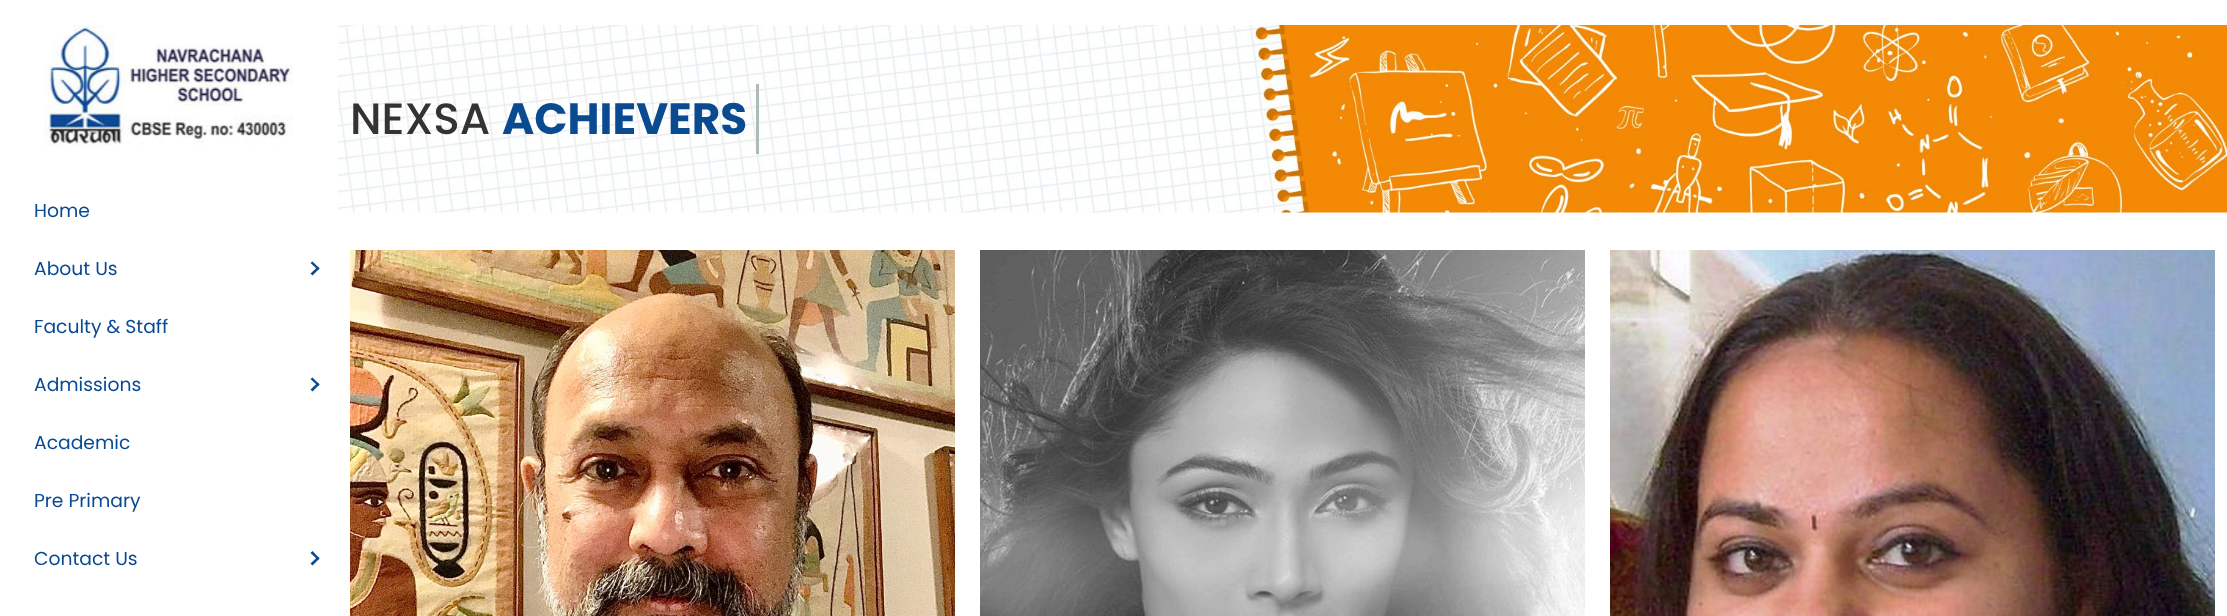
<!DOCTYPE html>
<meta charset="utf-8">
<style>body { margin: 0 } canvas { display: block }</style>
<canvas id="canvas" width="2227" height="616"></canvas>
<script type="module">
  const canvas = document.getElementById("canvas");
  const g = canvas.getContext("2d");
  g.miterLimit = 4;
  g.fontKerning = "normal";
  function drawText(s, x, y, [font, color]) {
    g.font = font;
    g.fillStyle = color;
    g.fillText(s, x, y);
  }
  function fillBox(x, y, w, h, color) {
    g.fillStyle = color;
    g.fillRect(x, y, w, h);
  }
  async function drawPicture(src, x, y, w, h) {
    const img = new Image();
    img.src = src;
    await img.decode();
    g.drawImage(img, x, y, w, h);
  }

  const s1 = ["500 43.75px Poppins", "#333333"];
  const s2 = ["bold 43.75px Poppins", "#094A91"];
  const s3 = ["18.75px Poppins", "#094A91"];

  fillBox(0, 0, 2227, 616, "#FFFFFF");
  await drawPicture("pic1.png", 338, 25, 1889, 188);
  drawText("NEXSA", 350, 134, s1);
  drawText("ACHIEVERS", 502, 134, s2);
  fillBox(756, 84, 3, 70, "#AEBCB9");
  await drawPicture("pic2.png", 350, 250, 605, 366);
  await drawPicture("pic3.png", 980, 250, 605, 366);
  await drawPicture("pic4.png", 1610, 250, 605, 366);
  await drawPicture("pic5.png", 44, 25, 250, 120);
  drawText("Home", 34, 217, s3);
  drawText("About Us", 34, 275, s3);
  g.beginPath();
  g.moveTo(312.5, 261.5);
  g.lineTo(319.5, 268.5);
  g.lineTo(318, 270);
  g.lineTo(310.5, 263);
  g.closePath();
  g.fill();
  g.beginPath();
  g.moveTo(318, 266.5);
  g.lineTo(319.5, 268.5);
  g.lineTo(312.5, 275.5);
  g.lineTo(310.5, 273.5);
  g.closePath();
  g.fill();
  drawText("Faculty & Staff", 34, 333, s3);
  drawText("Admissions", 34, 391, s3);
  g.beginPath();
  g.moveTo(312.5, 377.5);
  g.lineTo(319.5, 384.5);
  g.lineTo(318, 386);
  g.lineTo(310.5, 379);
  g.closePath();
  g.fill();
  g.beginPath();
  g.moveTo(318, 382.5);
  g.lineTo(319.5, 384.5);
  g.lineTo(312.5, 391.5);
  g.lineTo(310.5, 389.5);
  g.closePath();
  g.fill();
  drawText("Academic", 34, 449, s3);
  drawText("Pre Primary", 34, 507, s3);
  drawText("Contact Us", 34, 565, s3);
  g.beginPath();
  g.moveTo(312.5, 551);
  g.lineTo(319.5, 558.5);
  g.lineTo(318, 560);
  g.lineTo(310.5, 553);
  g.closePath();
  g.fill();
  g.beginPath();
  g.moveTo(318, 556.5);
  g.lineTo(319.5, 558.5);
  g.lineTo(312.5, 565.5);
  g.lineTo(310.5, 563.5);
  g.closePath();
  g.fill();
</script>
